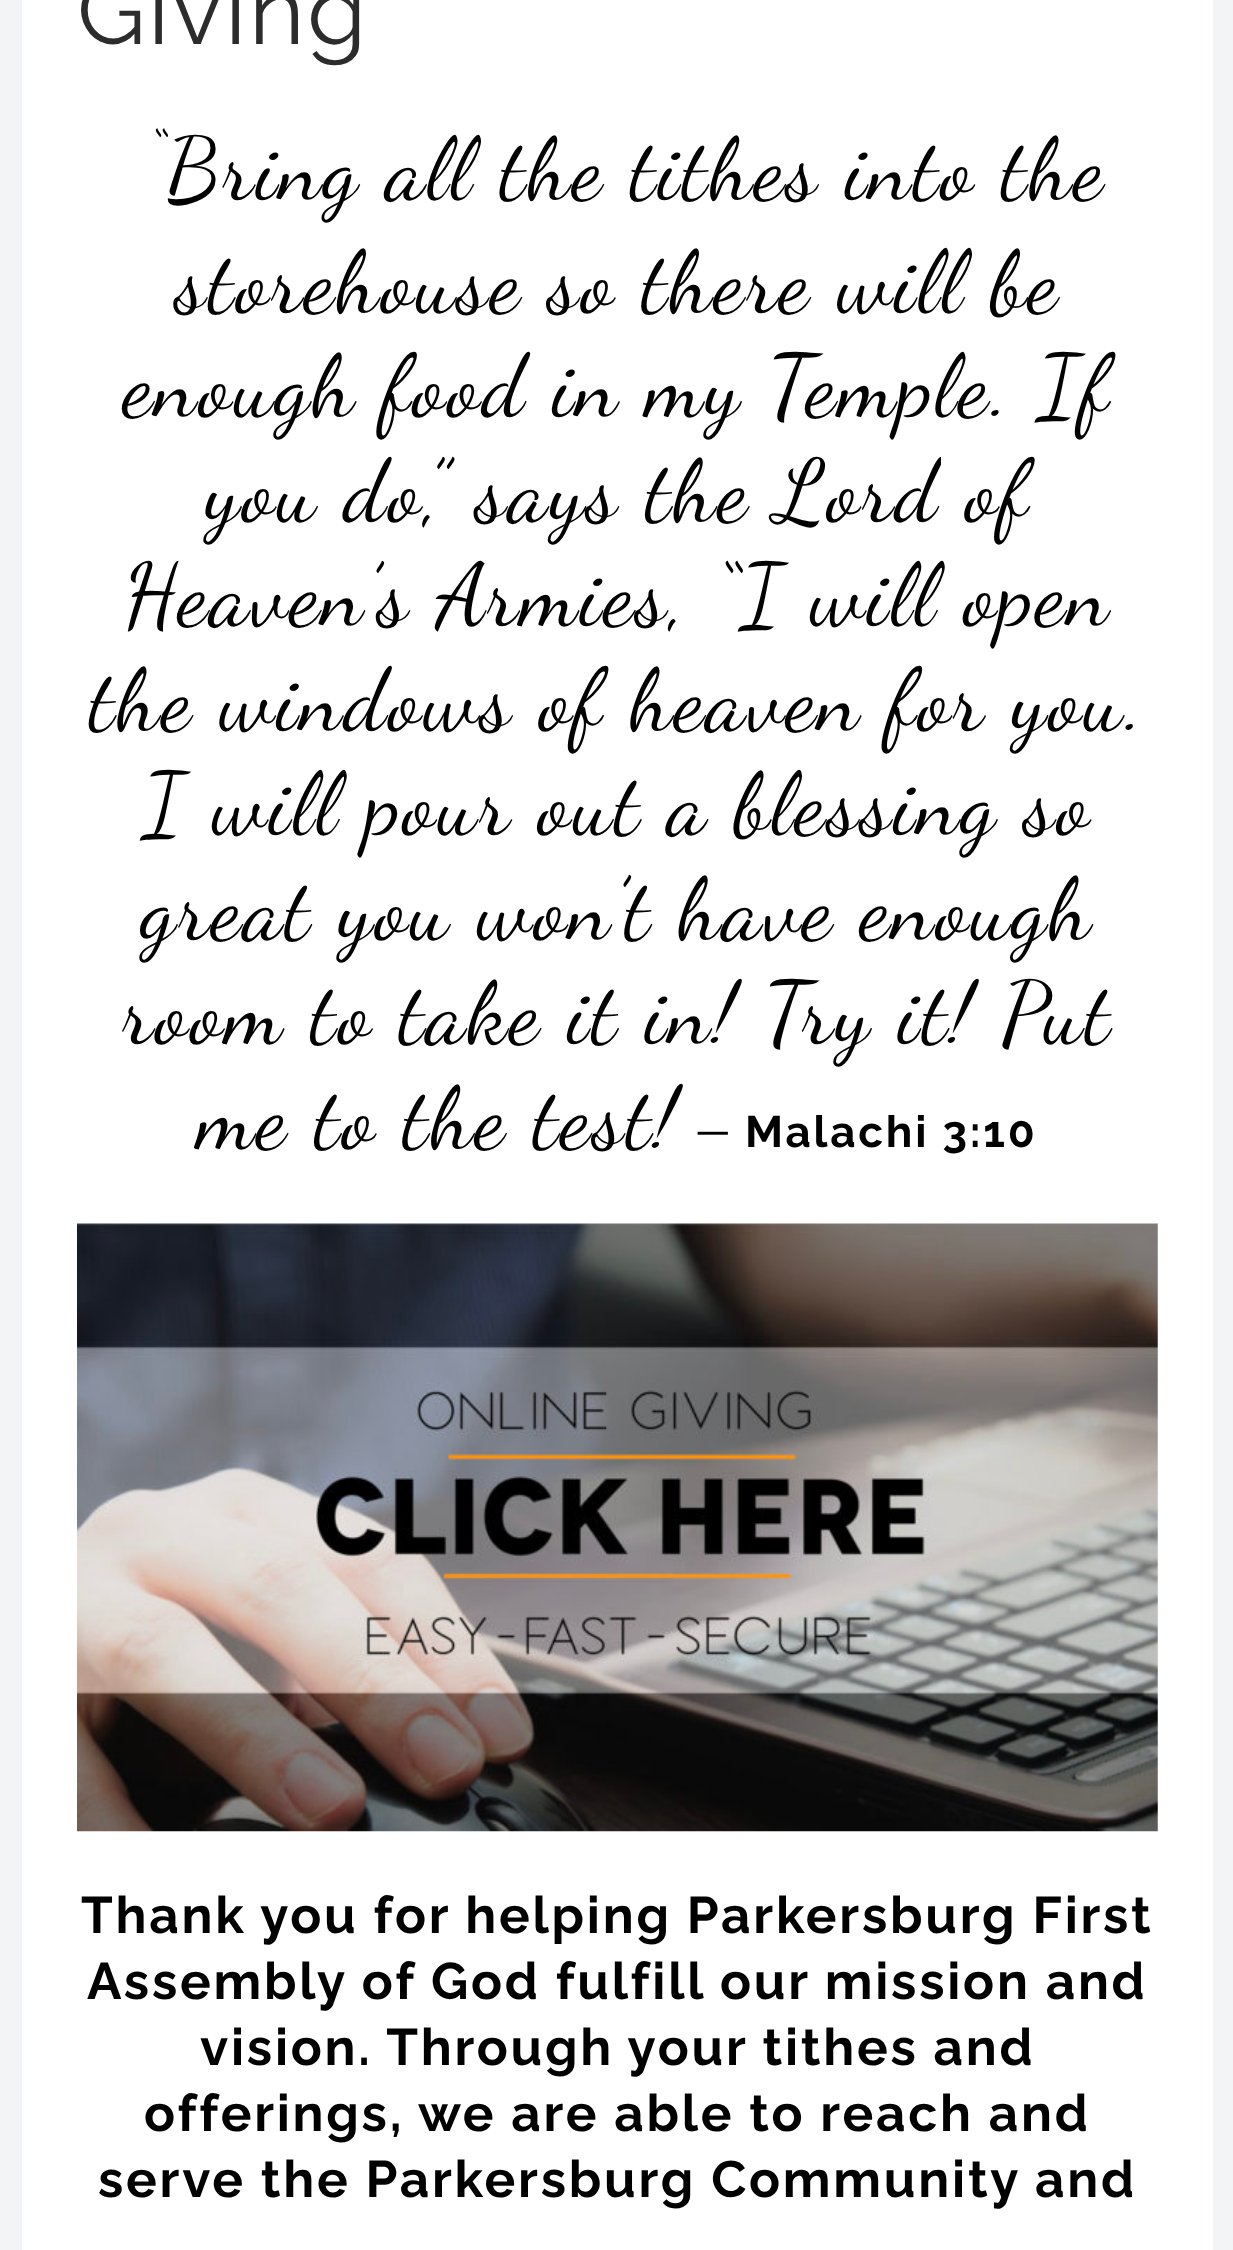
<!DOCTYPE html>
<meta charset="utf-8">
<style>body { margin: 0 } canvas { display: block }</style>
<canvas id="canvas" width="1233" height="2250"></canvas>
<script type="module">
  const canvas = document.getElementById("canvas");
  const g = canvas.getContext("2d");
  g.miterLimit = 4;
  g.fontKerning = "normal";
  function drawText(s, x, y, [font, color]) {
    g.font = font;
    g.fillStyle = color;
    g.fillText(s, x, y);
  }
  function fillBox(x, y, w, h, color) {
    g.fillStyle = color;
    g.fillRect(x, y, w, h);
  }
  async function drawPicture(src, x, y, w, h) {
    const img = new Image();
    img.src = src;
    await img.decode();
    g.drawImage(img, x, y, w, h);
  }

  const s1 = ["95.5px Raleway", "#2C2C2C"];
  const s2 = ["62px Dancing Script", "#000000"];
  const s3 = ["88px Dancing Script", "#000000"];
  const s4 = ["59px Liberation Serif", "#000000"];
  const s5 = ["bold 44px Raleway", "#000000"];
  const s6 = ["bold 51.3px Raleway", "#000000"];

  fillBox(0, 0, 1233, 2250, "#F3F4F5");
  fillBox(22, 0, 1191, 2250, "#FFFFFF");
  g.letterSpacing = "2.75px";
  drawText("Giving", 77, 44, s1);
  drawText("“", 148, 173, s2);
  drawText("Bring all the tithes into the", 166, 198, s3);
  drawText("storehouse so there will be", 175, 311, s3);
  drawText("enough food in my Temple. If", 123, 415, s3);
  drawText("you do,” says the Lord of", 205, 520, s3);
  fillBox(941, 456, 2, 9, "#FFFFFF");
  drawText("Heaven’s Armies, “I will open", 123, 624, s3);
  drawText("the windows of heaven for you.", 89, 729, s3);
  drawText("I will pour out a blessing so", 143, 833, s3);
  drawText("great you won’t have enough", 141, 938, s3);
  drawText("room to take it in! Try it! Put", 122, 1042, s3);
  drawText("me to the test!", 197, 1147, s3);
  drawText("–", 698, 1147, s4);
  drawText("Malachi 3:10", 745, 1147, s5);
  await drawPicture("pic1.png", 77, 1223, 1081, 609);
  drawText("Thank you for helping Parkersburg First", 81, 1933, s6);
  drawText("Assembly of God fulfill our mission and", 87, 1999, s6);
  drawText("vision. Through your tithes and", 200, 2065, s6);
  drawText("offerings, we are able to reach and", 144, 2131, s6);
  drawText("serve the Parkersburg Community and", 98, 2197, s6);
</script>
